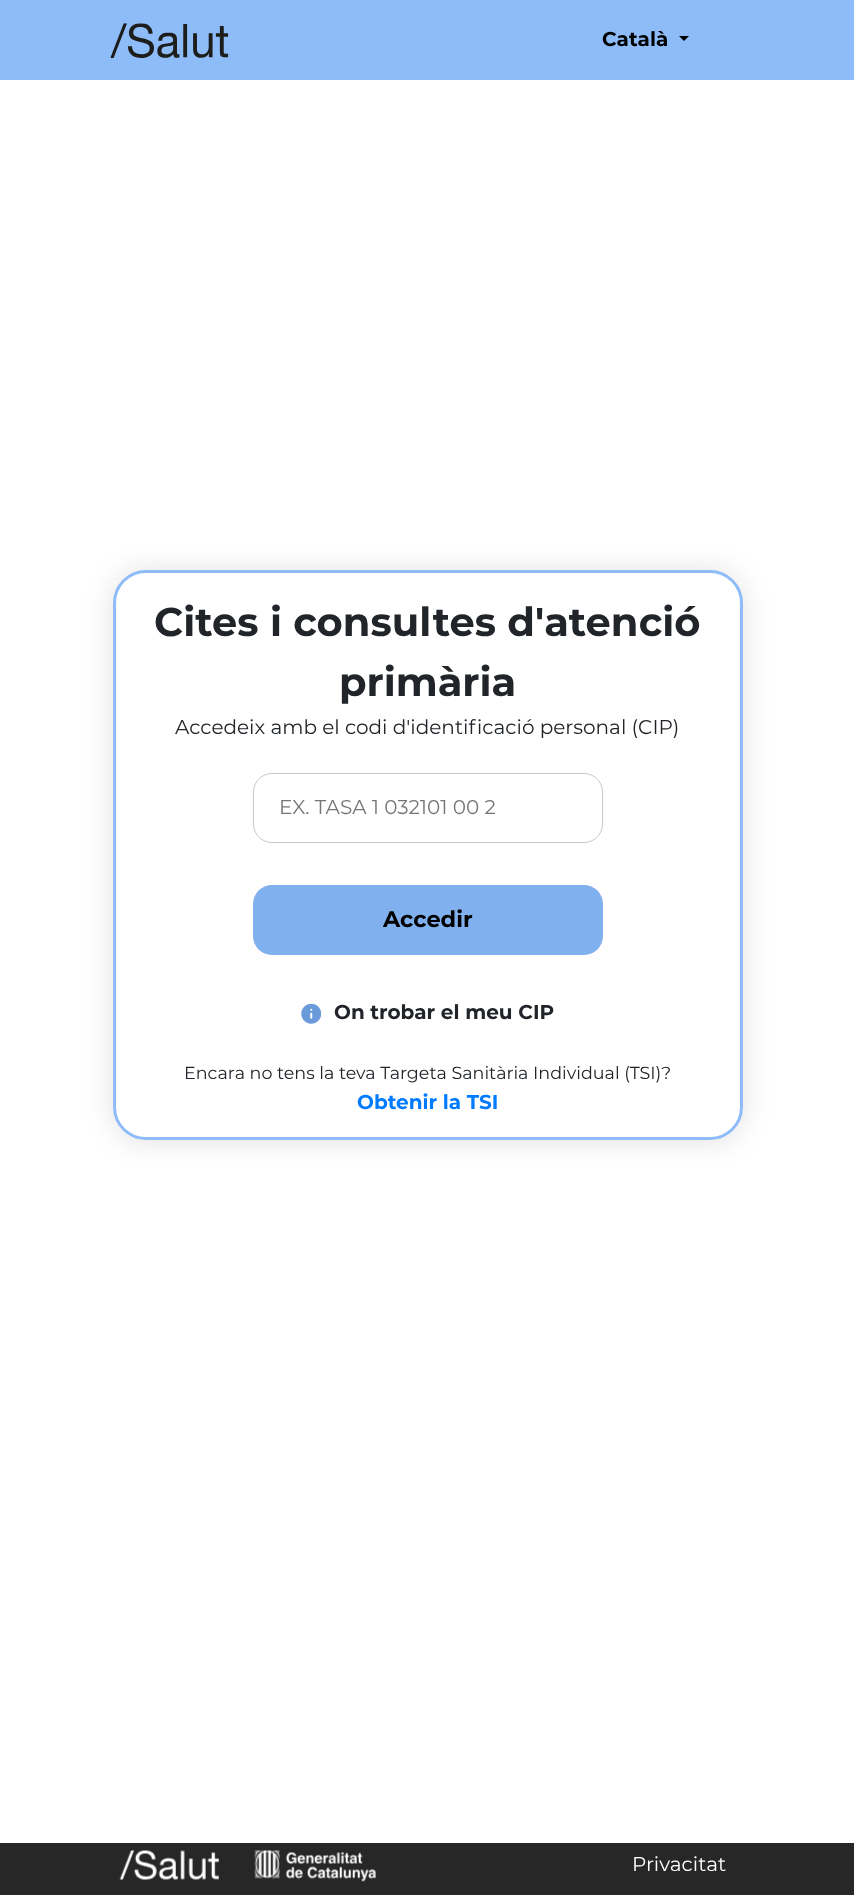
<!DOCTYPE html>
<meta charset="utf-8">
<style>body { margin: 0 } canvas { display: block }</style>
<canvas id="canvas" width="854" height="1895"></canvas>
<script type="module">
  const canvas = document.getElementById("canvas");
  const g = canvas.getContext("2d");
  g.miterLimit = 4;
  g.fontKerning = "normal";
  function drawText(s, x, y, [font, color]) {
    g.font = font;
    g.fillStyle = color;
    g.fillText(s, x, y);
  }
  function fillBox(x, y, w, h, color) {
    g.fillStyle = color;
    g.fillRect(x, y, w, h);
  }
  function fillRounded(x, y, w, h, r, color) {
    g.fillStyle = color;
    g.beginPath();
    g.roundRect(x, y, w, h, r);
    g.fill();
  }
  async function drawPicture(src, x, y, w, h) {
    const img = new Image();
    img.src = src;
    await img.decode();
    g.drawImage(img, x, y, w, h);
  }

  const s1 = ["bold 20px Montserrat", "#000000"];
  const s2 = ["bold 40px Montserrat", "#212529"];
  const s3 = ["20px Montserrat", "#212529"];
  const s4 = ["20px Montserrat", "#757575"];
  const s5 = ["bold 22.5px Montserrat", "#000000"];
  const s6 = ["bold 20px Montserrat", "#212529"];
  const s7 = ["17.5px Montserrat", "#212529"];
  const s8 = ["bold 20px Montserrat", "#007BFF"];
  const s9 = ["20px Montserrat", "#FFFFFF"];

  fillBox(0, 0, 854, 1895, "#FFFFFF");
  fillBox(0, 0, 854, 80, "#8EBCF9");
  await drawPicture("pic1.png", 110, 23, 119, 35);
  drawText("Català", 602, 46, s1);
  g.beginPath();
  g.moveTo(679, 36);
  g.lineTo(689, 36);
  g.lineTo(684, 41);
  g.closePath();
  g.fill();
  g.fillStyle = "rgba(0, 0, 0, 0.12)";
  g.filter = "blur(14.5px)";
  g.beginPath();
  g.roundRect(113, 571, 630, 570, 33);
  g.fill();
  g.filter = "none";
  g.fillStyle = "#FFFFFF";
  g.beginPath();
  g.roundRect(114.5, 571.5, 627, 567, 31.5);
  g.fill();
  g.strokeStyle = "#8EBCF9";
  g.lineWidth = 3;
  g.stroke();
  drawText("Cites i consultes d'atenció", 154, 636, s2);
  drawText("primària", 339, 696, s2);
  drawText("Accedeix amb el codi d'identificació personal (CIP)", 175, 734, s3);
  g.beginPath();
  g.roundRect(253.5, 773.5, 349, 69, 18.5);
  g.strokeStyle = "#C8C8CD";
  g.lineWidth = 1;
  g.stroke();
  drawText("EX. TASA 1 032101 00 2", 279, 814, s4);
  fillRounded(253, 885, 350, 70, 19, "#81B0EF");
  drawText("Accedir", 383, 927, s5);
  await drawPicture("pic2.png", 301, 1004, 20, 20);
  drawText("On trobar el meu CIP", 334, 1019, s6);
  drawText("Encara no tens la teva Targeta Sanitària Individual (TSI)?", 184, 1079, s7);
  drawText("Obtenir la TSI", 357, 1109, s8);
  fillBox(0, 1843, 854, 52, "#272727");
  await drawPicture("pic3.png", 119, 1850, 100, 30);
  await drawPicture("pic4.png", 254, 1850, 122, 32);
  drawText("Privacitat", 632, 1871, s9);
</script>
